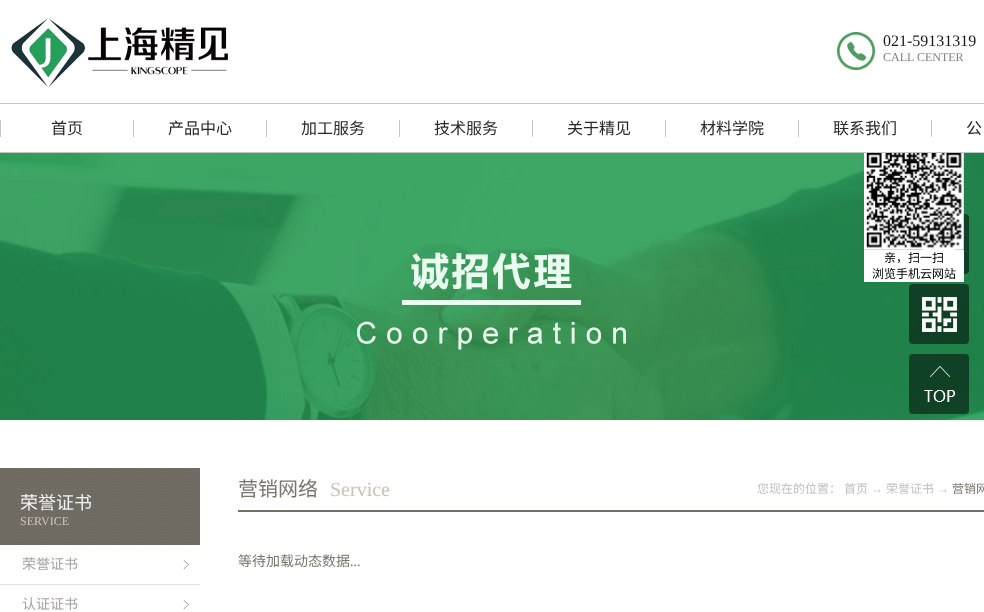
<!DOCTYPE html>
<meta charset="utf-8">
<style>body { margin: 0 } canvas { display: block }</style>
<canvas id="canvas" width="984" height="612"></canvas>
<script type="module">
  const canvas = document.getElementById("canvas");
  const g = canvas.getContext("2d");
  g.miterLimit = 4;
  g.fontKerning = "normal";
  function drawText(s, x, y, [font, color]) {
    g.font = font;
    g.fillStyle = color;
    g.fillText(s, x, y);
  }
  function fillBox(x, y, w, h, color) {
    g.fillStyle = color;
    g.fillRect(x, y, w, h);
  }
  function fillRounded(x, y, w, h, r, color) {
    g.fillStyle = color;
    g.beginPath();
    g.roundRect(x, y, w, h, r);
    g.fill();
  }
  async function drawPicture(src, x, y, w, h) {
    const img = new Image();
    img.src = src;
    await img.decode();
    g.drawImage(img, x, y, w, h);
  }

  const s1 = ["16px Liberation Serif", "#181616"];
  const s2 = ["12px Liberation Serif", "#828282"];
  const s3 = ["16px Noto Sans CJK SC", "#282828"];
  const s4 = ["12px Noto Sans CJK SC", "#000000"];
  const s5 = ["18px Noto Sans CJK SC", "#F2F3F7"];
  const s6 = ["12px Liberation Serif", "#D0C7B8"];
  const s7 = ["14px Noto Sans CJK SC", "#A5A29D"];
  const s8 = ["20px Noto Sans CJK SC", "#7A766D"];
  const s9 = ["20px Liberation Serif", "#CBC2B1"];
  const s10 = ["12px Noto Sans CJK SC", "#C1C1C1"];
  const s11 = ["12px Liberation Serif", "#C1C1C1"];
  const s12 = ["12px Noto Sans CJK SC", "#7A766D"];
  const s13 = ["14px Noto Sans CJK SC", "#7A766D"];
  const s14 = ["14px Liberation Serif", "#7A766D"];

  fillBox(0, 0, 984, 612, "#FFFFFF");
  fillBox(0, 152, 984, 1, "#C4C4C4");
  await drawPicture("pic1.png", 11, 18, 217, 69);
  await drawPicture("pic2.png", 837, 32, 38, 38);
  drawText("021-59131319", 883, 46, s1);
  drawText("CALL CENTER", 883, 61, s2);
  fillBox(0, 103, 984, 1, "#C4C4C4");
  fillBox(133, 120, 1, 17, "#C4C4C4");
  fillBox(0, 120, 1, 17, "#C4C4C4");
  drawText("首页", 51, 134, s3);
  fillBox(266, 120, 1, 17, "#C4C4C4");
  drawText("产品中心", 168, 134, s3);
  fillBox(399, 120, 1, 17, "#C4C4C4");
  drawText("加工服务", 301, 134, s3);
  fillBox(532, 120, 1, 17, "#C4C4C4");
  drawText("技术服务", 434, 134, s3);
  fillBox(665, 120, 1, 17, "#C4C4C4");
  drawText("关于精见", 567, 134, s3);
  fillBox(798, 120, 1, 17, "#C4C4C4");
  drawText("材料学院", 700, 134, s3);
  fillBox(931, 120, 1, 17, "#C4C4C4");
  drawText("联系我们", 833, 134, s3);
  drawText("公", 966, 134, s3);
  await drawPicture("pic3.png", 0, 153, 984, 267);
  fillRounded(909, 214, 60, 60, 4, "rgba(0, 0, 0, 0.5)");
  await drawPicture("pic4.png", 923, 249, 32, 1);
  fillRounded(909, 284, 60, 60, 4, "rgba(0, 0, 0, 0.5)");
  await drawPicture("pic5.png", 922, 297, 35, 35);
  fillRounded(909, 354, 60, 60, 4, "rgba(0, 0, 0, 0.5)");
  await drawPicture("pic6.png", 924, 366, 31, 36);
  await drawPicture("pic7.png", 864, 153, 100, 97);
  fillBox(864, 250, 100, 32, "#FFFFFF");
  drawText("亲，扫一扫", 884, 262, s4);
  drawText("浏览手机云网站", 872, 278, s4);
  await drawPicture("pic8.png", 0, 468, 200, 77);
  drawText("荣誉证书", 20, 509, s5);
  drawText("SERVICE", 20, 525, s6);
  await drawPicture("pic9.png", 0, 560, 200, 25);
  drawText("荣誉证书", 22, 569, s7);
  await drawPicture("pic10.png", 183, 600, 6, 9);
  drawText("认证证书", 22, 609, s7);
  fillBox(238, 510, 746, 2, "#746F66");
  drawText("营销网络", 238, 496, s8);
  drawText("Service", 330, 496, s9);
  drawText("您现在的位置：", 757, 493, s10);
  drawText("首页", 844, 493, s10);
  drawText("→", 871, 493, s11);
  drawText("荣誉证书", 886, 493, s10);
  drawText("→", 937, 493, s11);
  drawText("营销网", 952, 493, s12);
  drawText("等待加载动态数据", 238, 566, s13);
  drawText("...", 350, 566, s14);
</script>
